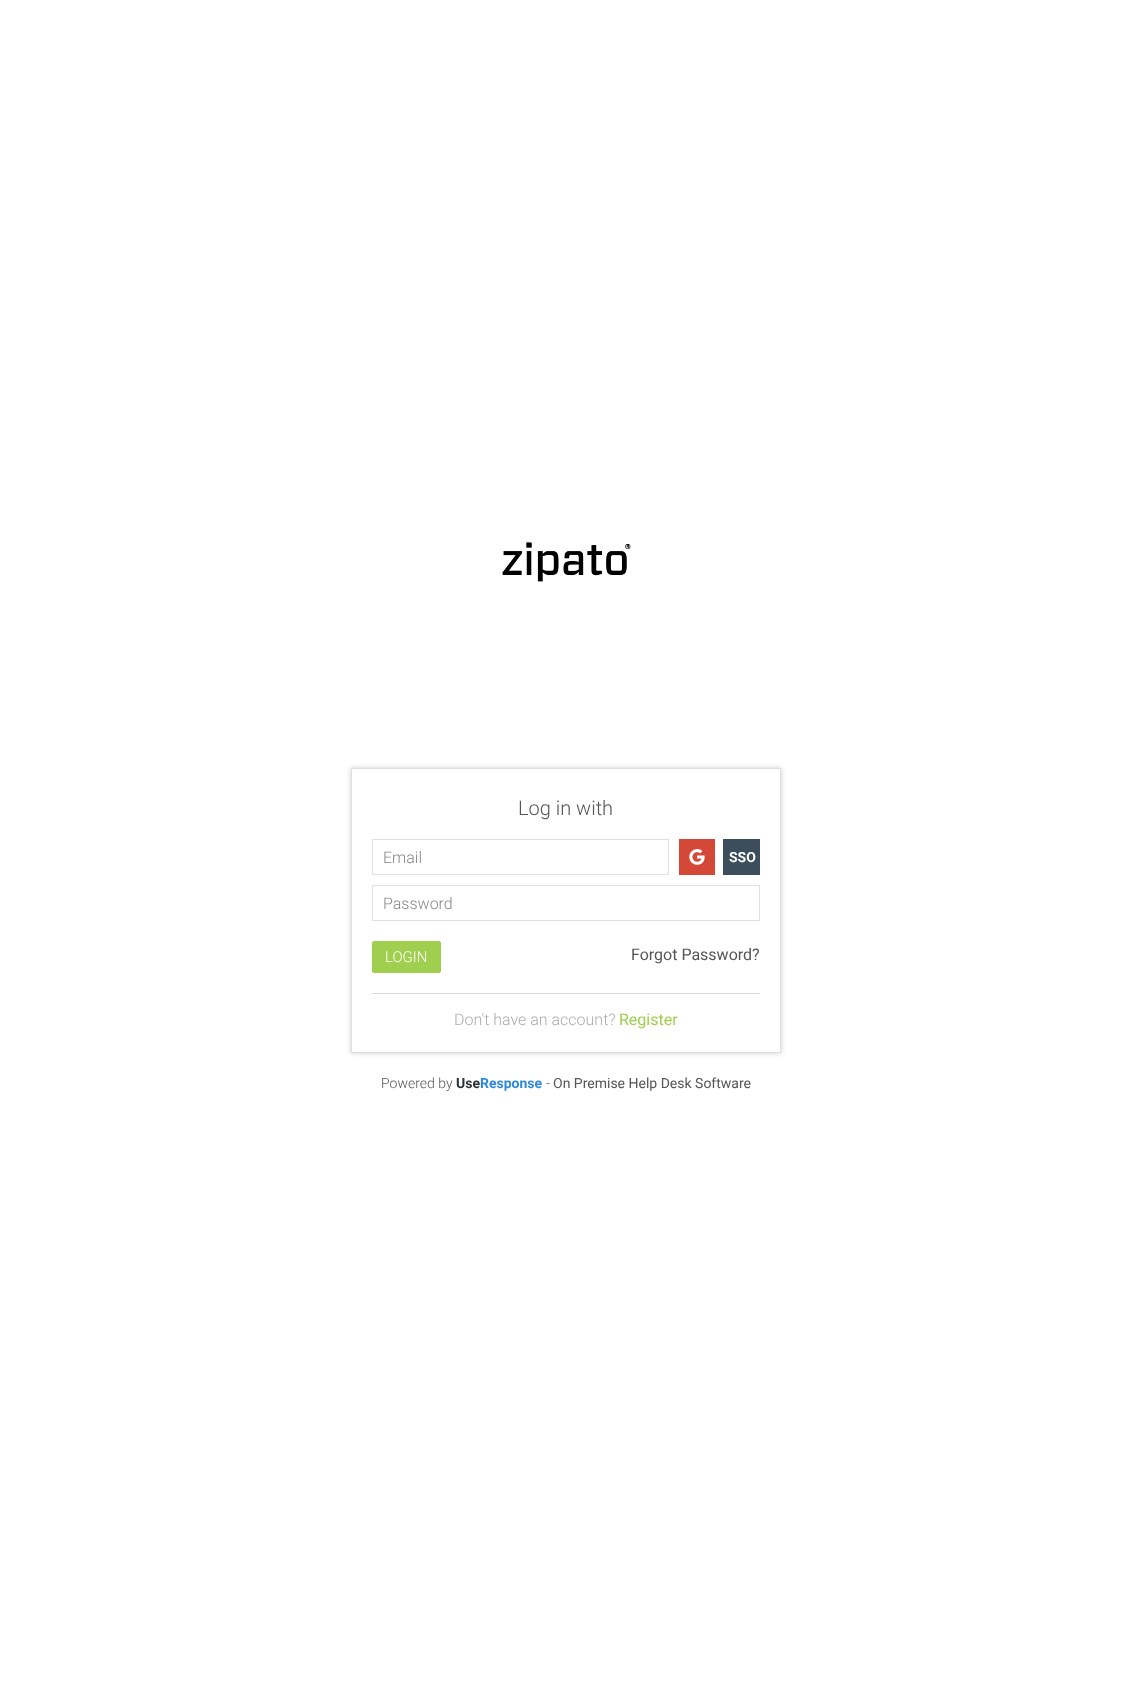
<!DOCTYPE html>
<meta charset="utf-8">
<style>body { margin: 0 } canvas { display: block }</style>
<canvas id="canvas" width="1132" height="1685"></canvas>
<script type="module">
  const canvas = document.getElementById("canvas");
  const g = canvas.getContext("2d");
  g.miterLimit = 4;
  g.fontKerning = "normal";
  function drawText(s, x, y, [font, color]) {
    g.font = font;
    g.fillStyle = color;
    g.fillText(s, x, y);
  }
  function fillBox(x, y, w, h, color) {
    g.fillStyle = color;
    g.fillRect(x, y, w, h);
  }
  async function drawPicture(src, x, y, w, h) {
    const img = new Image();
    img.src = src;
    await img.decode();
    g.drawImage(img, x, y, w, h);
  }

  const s1 = ["300 20px Roboto", "#555555"];
  const s2 = ["300 16px Roboto", "#888888"];
  const s3 = ["bold 14px Roboto", "#FFFFFF"];
  const s4 = ["300 15px Roboto", "#FFFFFF"];
  const s5 = ["16px Roboto", "#555555"];
  const s6 = ["300 16px Roboto", "#ACACAC"];
  const s7 = ["16px Roboto", "#A0CE4E"];
  const s8 = ["300 14px Roboto", "#555555"];
  const s9 = ["bold 14px Roboto", "#2B3236"];
  const s10 = ["bold 14px Roboto", "#2F89DA"];
  const s11 = ["14px Roboto", "#555555"];

  fillBox(0, 0, 1132, 1685, "#FFFFFF");
  await drawPicture("pic1.png", 502, 542, 129, 40);
  g.save();
  g.beginPath();
  g.moveTo(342, 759);
  g.lineTo(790, 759);
  g.lineTo(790, 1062);
  g.lineTo(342, 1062);
  g.closePath();
  g.moveTo(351, 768);
  g.lineTo(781, 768);
  g.lineTo(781, 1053);
  g.lineTo(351, 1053);
  g.closePath();
  g.clip("evenodd");
  g.fillStyle = "rgba(0, 0, 0, 0.2)";
  g.filter = "blur(2.5px)";
  g.beginPath();
  g.rect(351, 768, 430, 285);
  g.fill();
  g.filter = "none";
  g.restore();
  g.strokeStyle = "#DFDFDF";
  g.strokeRect(351.5, 768.5, 429, 284);
  drawText("Log in with", 518, 815, s1);
  g.strokeRect(372.5, 839.5, 296, 35);
  drawText("Email", 383, 863, s2);
  fillBox(679, 839, 36, 36, "#D34836");
  await drawPicture("pic2.png", 689, 849, 16, 16);
  fillBox(723, 839, 37, 36, "#3C4E5B");
  drawText("SSO", 729, 862, s3);
  g.strokeRect(372.5, 885.5, 387, 35);
  drawText("Password", 383, 909, s2);
  g.fillStyle = "#A0CE4E";
  g.beginPath();
  g.roundRect(372.5, 941.5, 68, 31, 1.5);
  g.fill();
  g.strokeStyle = "#A0CE4E";
  g.stroke();
  drawText("LOGIN", 385, 962, s4);
  drawText("Forgot Password?", 631, 960, s5);
  fillBox(372, 993, 388, 1, "#D9D9D9");
  drawText("Don't have an account?", 454, 1025, s6);
  drawText("Register", 619, 1025, s7);
  drawText("Powered by", 381, 1088, s8);
  drawText("Use", 456, 1088, s9);
  drawText("Response", 480, 1088, s10);
  drawText("-", 546, 1088, s8);
  drawText("On Premise Help Desk Software", 553, 1088, s11);
</script>
